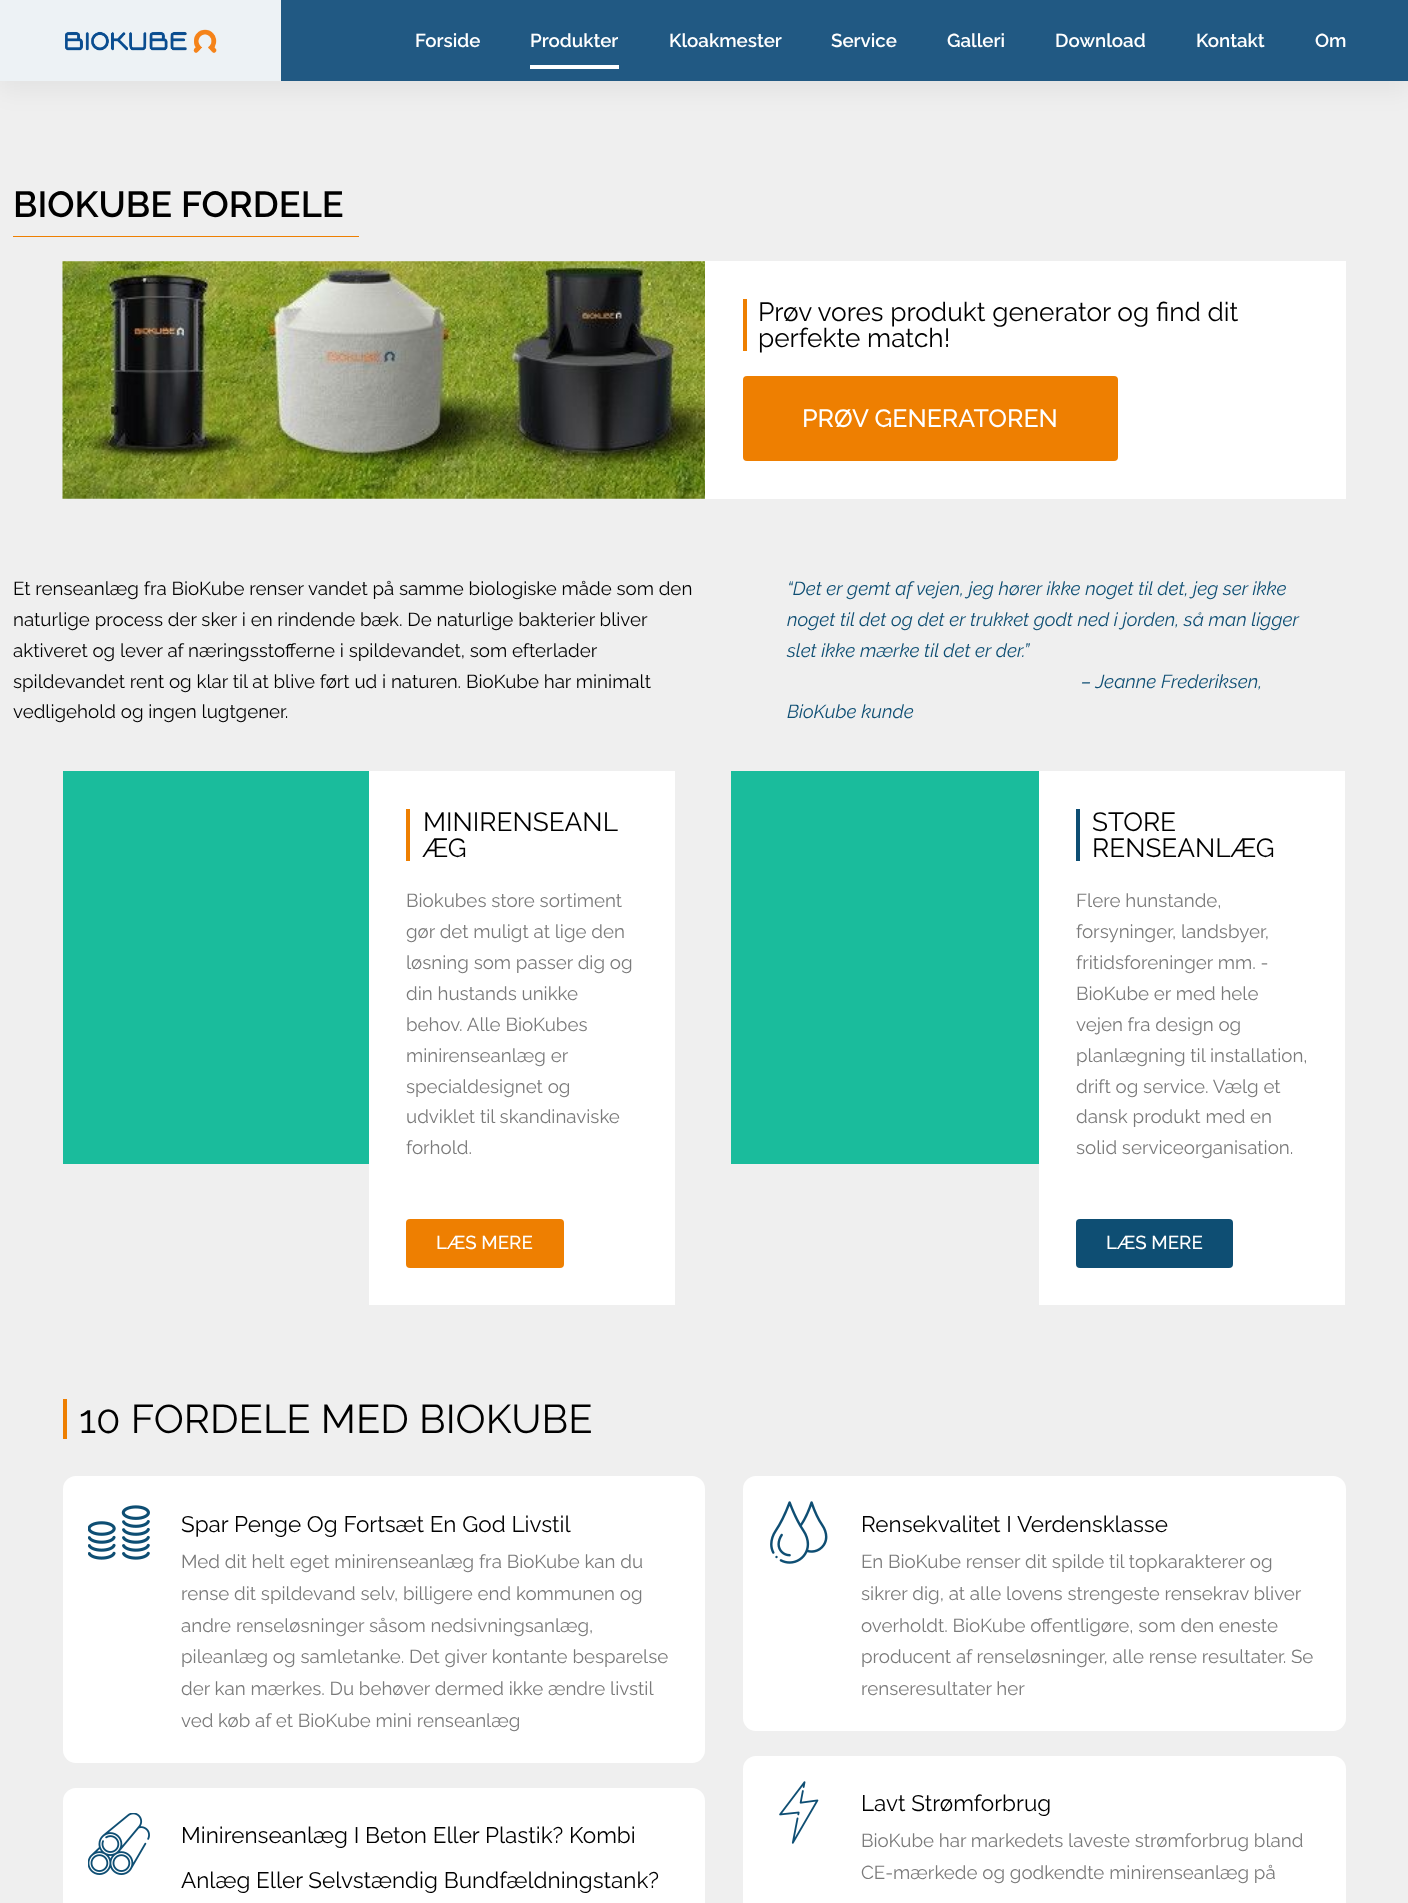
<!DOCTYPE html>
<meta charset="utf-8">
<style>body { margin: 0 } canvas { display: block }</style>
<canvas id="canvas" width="1408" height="1903"></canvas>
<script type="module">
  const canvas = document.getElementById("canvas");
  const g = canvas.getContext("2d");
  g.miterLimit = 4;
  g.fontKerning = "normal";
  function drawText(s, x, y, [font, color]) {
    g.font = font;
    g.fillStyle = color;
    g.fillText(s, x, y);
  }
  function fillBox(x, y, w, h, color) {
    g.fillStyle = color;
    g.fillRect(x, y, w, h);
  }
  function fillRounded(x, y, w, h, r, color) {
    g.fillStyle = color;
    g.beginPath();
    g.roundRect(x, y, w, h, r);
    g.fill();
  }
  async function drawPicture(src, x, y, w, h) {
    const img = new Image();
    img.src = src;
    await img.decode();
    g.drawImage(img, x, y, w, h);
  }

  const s1 = ["600 18.75px Raleway", "#FFFFFF"];
  const s2 = ["600 36.25px Raleway", "#000000"];
  const s3 = ["26.25px Raleway", "#000000"];
  const s4 = ["500 25px Raleway", "#FFFFFF"];
  const s5 = ["18.75px Raleway", "#000000"];
  const s6 = ["italic 18.75px Raleway", "#0E4E73"];
  const s7 = ["18.75px Raleway", "#7A7A7A"];
  const s8 = ["500 18.75px Raleway", "#FFFFFF"];
  const s9 = ["40px Raleway", "#000000"];
  const s10 = ["22.5px Raleway", "#000000"];

  fillBox(0, 0, 1408, 1903, "#EFEFEF");
  g.fillStyle = "rgba(0, 0, 0, 0.05)";
  g.filter = "blur(12.5px)";
  g.beginPath();
  g.rect(0, 10, 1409, 81);
  g.fill();
  g.filter = "none";
  fillBox(0, 0, 281, 81, "#EDF2F5");
  await drawPicture("pic1.png", 65, 29, 152, 24);
  fillBox(281, 0, 1127, 81, "#215983");
  drawText("Forside", 415, 47, s1);
  drawText("Produkter", 530, 47, s1);
  fillBox(530, 65, 89, 4, "#FFFFFF");
  drawText("Kloakmester", 669, 47, s1);
  drawText("Service", 831, 47, s1);
  drawText("Galleri", 947, 47, s1);
  drawText("Download", 1055, 47, s1);
  drawText("Kontakt", 1196, 47, s1);
  drawText("Om", 1315, 47, s1);
  drawText("BIOKUBE FORDELE", 13, 217, s2);
  fillBox(13, 236, 346, 1, "#EE7F01");
  await drawPicture("pic2.png", 62, 261, 643, 238);
  fillBox(705, 261, 641, 238, "#FFFFFF");
  fillBox(743, 299, 4, 52, "#EE7F01");
  drawText("Prøv vores produkt generator og find dit", 758, 321, s3);
  drawText("perfekte match!", 758, 347, s3);
  fillRounded(743, 376, 375, 85, 4, "#EE7F01");
  drawText("PRØV GENERATOREN", 802, 427, s4);
  drawText("Et renseanlæg fra BioKube renser vandet på samme biologiske måde som den", 13, 595, s5);
  drawText("naturlige process der sker i en rindende bæk. De naturlige bakterier bliver", 13, 626, s5);
  drawText("aktiveret og lever af næringsstofferne i spildevandet, som efterlader", 13, 657, s5);
  drawText("spildevandet rent og klar til at blive ført ud i naturen. BioKube har minimalt", 13, 688, s5);
  drawText("vedligehold og ingen lugtgener.", 13, 718, s5);
  drawText("“Det er gemt af vejen, jeg hører ikke noget til det, jeg ser ikke", 787, 595, s6);
  drawText("noget til det og det er trukket godt ned i jorden, så man ligger", 787, 626, s6);
  drawText("slet ikke mærke til det er der.”", 787, 657, s6);
  drawText("– Jeanne Frederiksen,", 1081, 688, s6);
  drawText("BioKube kunde", 787, 718, s6);
  fillBox(63, 771, 306, 393, "#1ABC9C");
  fillBox(369, 771, 306, 534, "#FFFFFF");
  fillBox(406, 809, 4, 52, "#EE7F01");
  drawText("MINIRENSEANL", 423, 831, s3);
  drawText("ÆG", 423, 857, s3);
  drawText("Biokubes store sortiment", 406, 907, s7);
  drawText("gør det muligt at lige den", 406, 938, s7);
  drawText("løsning som passer dig og", 406, 969, s7);
  drawText("din hustands unikke", 406, 1000, s7);
  drawText("behov. Alle BioKubes", 406, 1031, s7);
  drawText("minirenseanlæg er", 406, 1062, s7);
  drawText("specialdesignet og", 406, 1093, s7);
  drawText("udviklet til skandinaviske", 406, 1123, s7);
  drawText("forhold.", 406, 1154, s7);
  fillRounded(406, 1219, 158, 49, 4, "#EE7F01");
  drawText("LÆS MERE", 436, 1249, s8);
  fillBox(731, 771, 308, 393, "#1ABC9C");
  fillBox(1039, 771, 306, 534, "#FFFFFF");
  fillBox(1076, 809, 4, 52, "#0E4E73");
  drawText("STORE", 1092, 831, s3);
  drawText("RENSEANLÆG", 1092, 857, s3);
  drawText("Flere hunstande,", 1076, 907, s7);
  drawText("forsyninger, landsbyer,", 1076, 938, s7);
  drawText("fritidsforeninger mm. -", 1076, 969, s7);
  drawText("BioKube er med hele", 1076, 1000, s7);
  drawText("vejen fra design og", 1076, 1031, s7);
  drawText("planlægning til installation,", 1076, 1062, s7);
  drawText("drift og service. Vælg et", 1076, 1093, s7);
  drawText("dansk produkt med en", 1076, 1123, s7);
  drawText("solid serviceorganisation.", 1076, 1154, s7);
  fillRounded(1076, 1219, 157, 49, 4, "#0E4E73");
  drawText("LÆS MERE", 1106, 1249, s8);
  fillBox(63, 1399, 4, 40, "#EE7F01");
  drawText("10 FORDELE MED BIOKUBE", 79, 1433, s9);
  fillRounded(63, 1476, 642, 287, 13, "#FFFFFF");
  await drawPicture("pic3.png", 88, 1505, 62, 55);
  drawText("Spar Penge Og Fortsæt En God Livstil", 181, 1532, s10);
  drawText("Med dit helt eget minirenseanlæg fra BioKube kan du", 181, 1568, s7);
  drawText("rense dit spildevand selv, billigere end kommunen og", 181, 1600, s7);
  drawText("andre renseløsninger såsom nedsivningsanlæg,", 181, 1632, s7);
  drawText("pileanlæg og samletanke. Det giver kontante besparelse", 181, 1663, s7);
  drawText("der kan mærkes. Du behøver dermed ikke ændre livstil", 181, 1695, s7);
  drawText("ved køb af et BioKube mini renseanlæg", 181, 1727, s7);
  fillRounded(63, 1788, 642, 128, 13, "#FFFFFF");
  await drawPicture("pic4.png", 88, 1813, 62, 62);
  drawText("Minirenseanlæg I Beton Eller Plastik? Kombi", 181, 1843, s10);
  drawText("Anlæg Eller Selvstændig Bundfældningstank?", 181, 1888, s10);
  fillRounded(743, 1476, 603, 255, 13, "#FFFFFF");
  await drawPicture("pic5.png", 770, 1501, 58, 63);
  drawText("Rensekvalitet I Verdensklasse", 861, 1532, s10);
  drawText("En BioKube renser dit spilde til topkarakterer og", 861, 1568, s7);
  drawText("sikrer dig, at alle lovens strengeste rensekrav bliver", 861, 1600, s7);
  drawText("overholdt. BioKube offentligøre, som den eneste", 861, 1632, s7);
  drawText("producent af renseløsninger, alle rense resultater. Se", 861, 1663, s7);
  drawText("renseresultater her", 861, 1695, s7);
  fillRounded(743, 1756, 603, 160, 13, "#FFFFFF");
  await drawPicture("pic6.png", 779, 1781, 40, 63);
  drawText("Lavt Strømforbrug", 861, 1811, s10);
  drawText("BioKube har markedets laveste strømforbrug bland", 861, 1847, s7);
  drawText("CE-mærkede og godkendte minirenseanlæg på", 861, 1879, s7);
</script>
